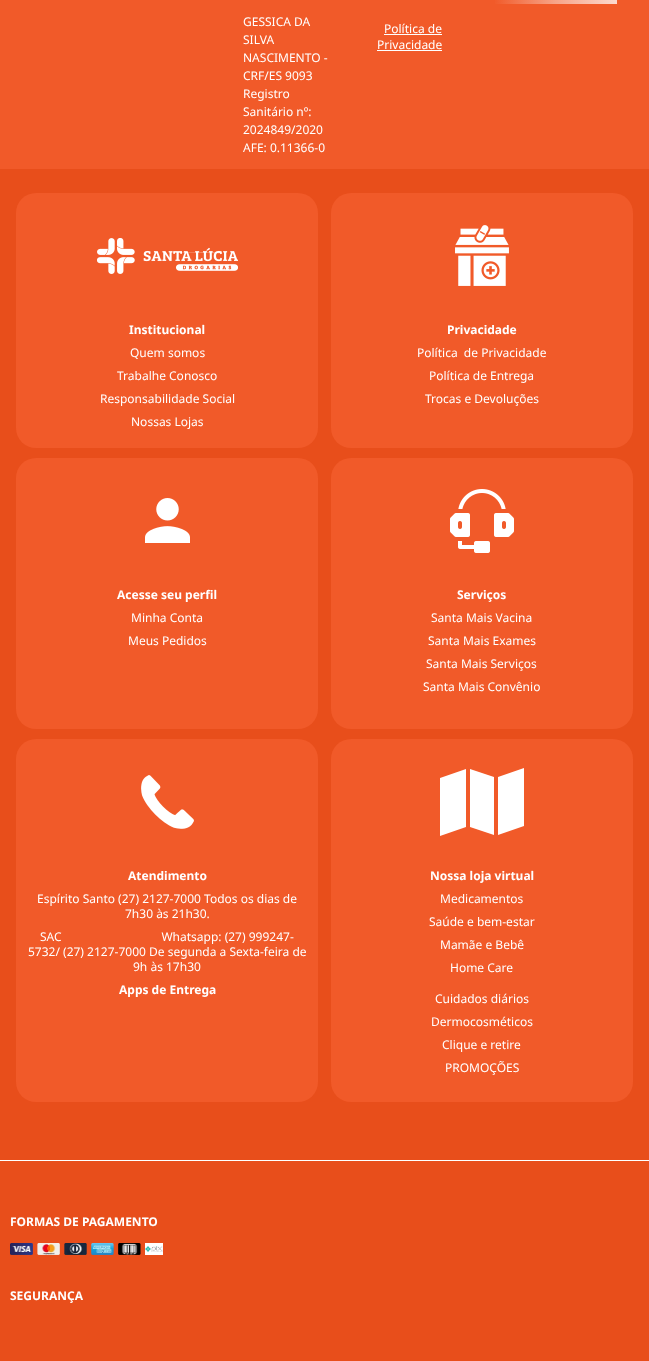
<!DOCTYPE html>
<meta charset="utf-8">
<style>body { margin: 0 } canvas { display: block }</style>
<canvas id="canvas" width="649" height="1361"></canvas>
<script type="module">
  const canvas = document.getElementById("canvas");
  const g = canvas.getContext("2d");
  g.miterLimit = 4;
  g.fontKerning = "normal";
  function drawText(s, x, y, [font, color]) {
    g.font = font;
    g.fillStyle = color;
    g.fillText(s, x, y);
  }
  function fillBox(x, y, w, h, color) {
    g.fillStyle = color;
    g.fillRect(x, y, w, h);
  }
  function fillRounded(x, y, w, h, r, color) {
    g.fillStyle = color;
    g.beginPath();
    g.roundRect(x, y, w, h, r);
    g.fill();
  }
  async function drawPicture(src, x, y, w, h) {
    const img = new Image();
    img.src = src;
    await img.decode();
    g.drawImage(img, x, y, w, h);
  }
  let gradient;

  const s1 = ["12px Noto Sans", "#FFFFFF"];
  const s2 = ["bold 12px Noto Sans", "#FFFFFF"];

  fillBox(0, 0, 649, 1361, "#E84E1B");
  fillBox(0, 0, 649, 169, "#F15A29");
  gradient = g.createLinearGradient(0, 2, 617, 2);
  gradient.addColorStop(0.8, "#F15A29");
  gradient.addColorStop(0.9, "#F7A488");
  gradient.addColorStop(1, "#FCDACF");
  g.fillStyle = gradient;
  g.fillRect(495, 0, 122, 4);
  drawText("GESSICA DA", 243, 26, s1);
  drawText("SILVA", 243, 44, s1);
  drawText("NASCIMENTO -", 243, 62, s1);
  drawText("CRF/ES 9093", 243, 80, s1);
  drawText("Registro", 243, 98, s1);
  drawText("Sanitário nº:", 243, 116, s1);
  drawText("2024849/2020", 243, 134, s1);
  drawText("AFE: 0.11366-0", 243, 152, s1);
  drawText("Política de", 384, 33, s1);
  fillBox(384, 34, 58, 1, "#FFFFFF");
  drawText("Privacidade", 377, 49, s1);
  fillBox(377, 50, 65, 1, "#FFFFFF");
  fillRounded(16, 193, 302, 255, 20, "#F15A29");
  await drawPicture("pic1.png", 97, 238, 141, 36);
  drawText("Institucional", 129, 334, s2);
  drawText("Quem somos", 130, 357, s1);
  drawText("Trabalhe Conosco", 117, 380, s1);
  drawText("Responsabilidade Social", 100, 403, s1);
  drawText("Nossas Lojas", 131, 426, s1);
  fillRounded(331, 193, 302, 255, 20, "#F15A29");
  await drawPicture("pic2.png", 455, 225, 54, 61);
  drawText("Privacidade", 447, 334, s2);
  drawText("Política  de Privacidade", 417, 357, s1);
  drawText("Política de Entrega", 429, 380, s1);
  drawText("Trocas e Devoluções", 425, 403, s1);
  fillRounded(16, 458, 302, 271, 20, "#F15A29");
  await drawPicture("pic3.png", 145, 498, 45, 45);
  drawText("Acesse seu perfil", 117, 599, s2);
  drawText("Minha Conta", 131, 622, s1);
  drawText("Meus Pedidos", 128, 645, s1);
  fillRounded(331, 458, 302, 271, 20, "#F15A29");
  await drawPicture("pic4.png", 450, 489, 64, 64);
  drawText("Serviços", 457, 599, s2);
  drawText("Santa Mais Vacina", 431, 622, s1);
  drawText("Santa Mais Exames", 428, 645, s1);
  drawText("Santa Mais Serviços", 426, 668, s1);
  drawText("Santa Mais Convênio", 423, 691, s1);
  fillRounded(16, 739, 302, 363, 20, "#F15A29");
  await drawPicture("pic5.png", 141, 775, 53, 54);
  drawText("Atendimento", 128, 880, s2);
  drawText("Espírito Santo (27) 2127-7000 Todos os dias de", 37, 903, s1);
  drawText("7h30 às 21h30.", 125, 918, s1);
  drawText("SAC                                Whatsapp: (27) 999247-", 40, 941, s1);
  drawText("5732/ (27) 2127-7000 De segunda a Sexta-feira de", 28, 956, s1);
  drawText("9h às 17h30", 133, 971, s1);
  drawText("Apps de Entrega", 119, 994, s2);
  fillRounded(331, 739, 302, 363, 20, "#F15A29");
  g.fillStyle = "#FFFFFF";
  g.beginPath();
  g.moveTo(524, 768);
  g.lineTo(498, 777);
  g.lineTo(498, 835);
  g.lineTo(524, 826);
  g.closePath();
  g.moveTo(466, 769);
  g.lineTo(440, 778);
  g.lineTo(440, 836);
  g.lineTo(466, 827);
  g.closePath();
  g.moveTo(470, 769);
  g.lineTo(470, 827);
  g.lineTo(494, 835);
  g.lineTo(494, 777);
  g.closePath();
  g.fill();
  drawText("Nossa loja virtual", 430, 880, s2);
  drawText("Medicamentos", 440, 903, s1);
  drawText("Saúde e bem-estar", 429, 926, s1);
  drawText("Mamãe e Bebê", 440, 949, s1);
  drawText("Home Care", 450, 972, s1);
  drawText("Cuidados diários", 435, 1003, s1);
  drawText("Dermocosméticos", 431, 1026, s1);
  drawText("Clique e retire", 442, 1049, s1);
  drawText("PROMOÇÕES", 445, 1072, s1);
  fillBox(0, 1160, 649, 1, "#FFFFFF");
  drawText("FORMAS DE PAGAMENTO", 10, 1226, s2);
  await drawPicture("pic6.png", 10, 1243, 23, 12);
  await drawPicture("pic7.png", 37, 1243, 23, 12);
  await drawPicture("pic8.png", 64, 1243, 23, 12);
  await drawPicture("pic9.png", 91, 1243, 23, 12);
  await drawPicture("pic10.png", 118, 1243, 23, 12);
  await drawPicture("pic11.png", 145, 1243, 18, 12);
  drawText("SEGURANÇA", 10, 1300, s2);
</script>
